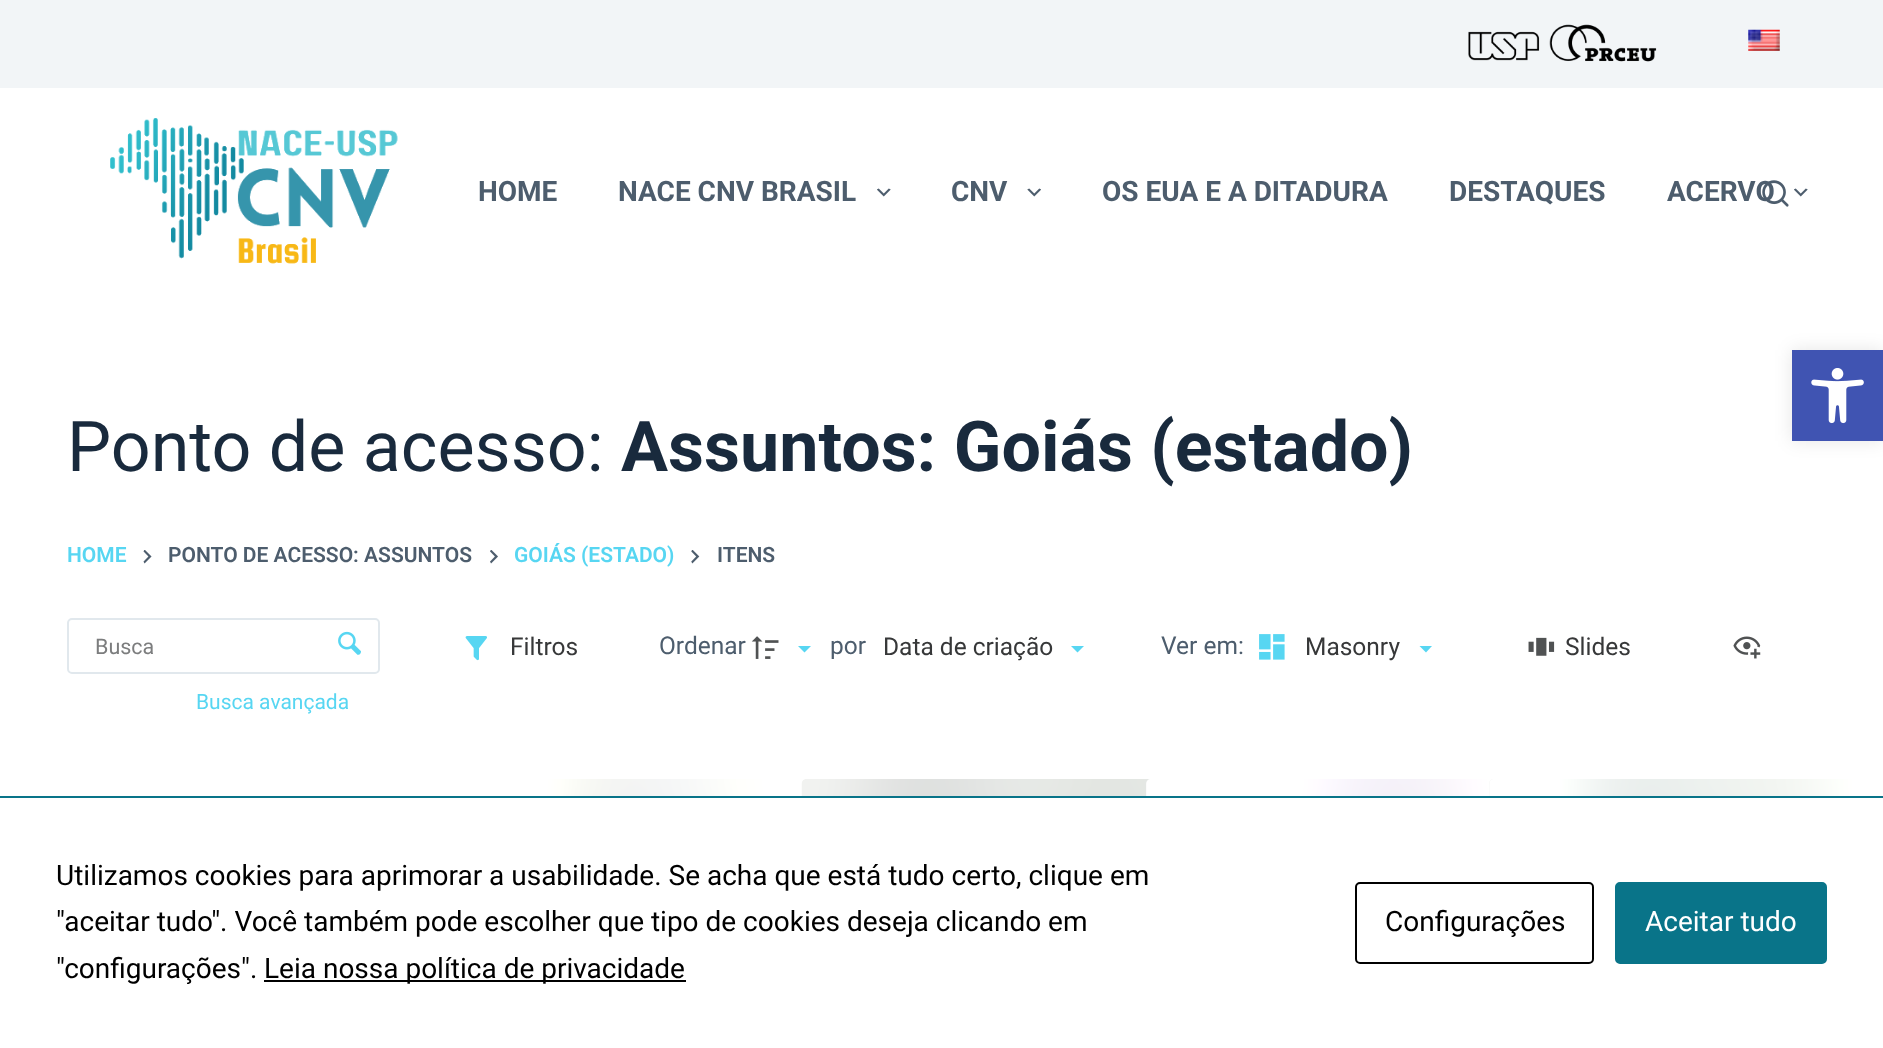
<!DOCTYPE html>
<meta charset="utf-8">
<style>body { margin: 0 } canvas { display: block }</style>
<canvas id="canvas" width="1883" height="1048"></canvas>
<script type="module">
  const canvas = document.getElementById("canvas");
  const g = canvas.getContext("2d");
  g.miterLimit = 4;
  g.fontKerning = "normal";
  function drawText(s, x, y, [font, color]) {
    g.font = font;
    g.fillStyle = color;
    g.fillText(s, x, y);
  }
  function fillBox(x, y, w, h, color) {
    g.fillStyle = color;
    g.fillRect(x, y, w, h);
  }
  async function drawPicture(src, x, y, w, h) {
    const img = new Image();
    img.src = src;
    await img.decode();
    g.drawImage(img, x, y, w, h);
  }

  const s1 = ["bold 28px Roboto", "#4D5D6D"];
  const s2 = ["70px Roboto", "#192A3D"];
  const s3 = ["bold 70px Roboto", "#192A3D"];
  const s4 = ["600 21px Roboto", "#57D6F2"];
  const s5 = ["600 21px Roboto", "#4D5D6D"];
  const s6 = ["21.5px Roboto", "#7C7D7E"];
  const s7 = ["21px Roboto", "#57D6F2"];
  const s8 = ["24.5px Roboto", "#373839"];
  const s9 = ["24.5px Roboto", "#4D5D6D"];
  const s10 = ["28px Roboto", "#000000"];
  const s11 = ["28px Roboto", "#FFFFFF"];

  fillBox(0, 0, 1883, 1048, "#FFFFFF");
  fillBox(0, 0, 1883, 88, "#F2F5F7");
  await drawPicture("pic1.png", 1468, 24, 189, 38);
  await drawPicture("pic2.png", 1748, 29, 32, 22);
  await drawPicture("pic3.png", 110, 118, 288, 146);
  drawText("HOME", 478, 201, s1);
  drawText("NACE CNV BRASIL", 618, 201, s1);
  await drawPicture("pic4.png", 877, 188, 14, 9);
  drawText("CNV", 951, 201, s1);
  await drawPicture("pic5.png", 1027, 188, 14, 9);
  drawText("OS EUA E A DITADURA", 1102, 201, s1);
  drawText("DESTAQUES", 1449, 201, s1);
  drawText("ACERVO", 1667, 201, s1);
  await drawPicture("pic4.png", 1794, 188, 14, 9);
  await drawPicture("pic6.png", 1762, 180, 27, 27);
  drawText("Ponto de acesso:", 67, 471, s2);
  drawText("Assuntos: Goiás (estado)", 621, 471, s3);
  drawText("HOME", 67, 562, s4);
  await drawPicture("pic7.png", 143, 550, 9, 14);
  drawText("PONTO DE ACESSO: ASSUNTOS", 168, 562, s5);
  await drawPicture("pic8.png", 490, 550, 8, 14);
  drawText("GOIÁS (ESTADO)", 514, 562, s4);
  await drawPicture("pic9.png", 691, 550, 9, 14);
  drawText("ITENS", 717, 562, s5);
  g.beginPath();
  g.roundRect(68, 619, 311, 54, 4);
  g.strokeStyle = "#E1E8ED";
  g.lineWidth = 2;
  g.stroke();
  drawText("Busca", 95, 654, s6);
  await drawPicture("pic10.png", 338, 631, 23, 24);
  drawText("Busca avançada", 196, 709, s7);
  await drawPicture("pic11.png", 465, 636, 22, 25);
  drawText("Filtros", 510, 655, s8);
  drawText("Ordenar", 659, 654, s9);
  await drawPicture("pic12.png", 751, 636, 28, 23);
  g.fillStyle = "#57D6F2";
  g.beginPath();
  g.moveTo(798, 646);
  g.lineTo(804.5, 652.5);
  g.lineTo(811, 646);
  g.closePath();
  g.fill();
  drawText("por", 830, 654, s9);
  drawText("Data de criação", 883, 655, s8);
  g.fillStyle = "#57D6F2";
  g.beginPath();
  g.moveTo(1071, 646);
  g.lineTo(1077.5, 652.5);
  g.lineTo(1084, 646);
  g.closePath();
  g.fill();
  drawText("Ver em:", 1161, 654, s9);
  await drawPicture("pic13.png", 1259, 634, 26, 26);
  drawText("Masonry", 1305, 655, s8);
  g.fillStyle = "#57D6F2";
  g.beginPath();
  g.moveTo(1419.5, 646);
  g.lineTo(1426, 652.5);
  g.lineTo(1432, 646);
  g.closePath();
  g.fill();
  await drawPicture("pic14.png", 1528, 637, 27, 19);
  drawText("Slides", 1565, 655, s8);
  await drawPicture("pic15.png", 1733, 636, 28, 23);
  await drawPicture("pic16.png", 457, 779, 349, 17);
  await drawPicture("pic17.png", 801, 779, 349, 17);
  g.fillStyle = "#F6F6F6";
  g.beginPath();
  g.moveTo(1151, 779);
  g.lineTo(1556, 779);
  g.bezierCurveTo(1559, 779, 1561, 781, 1561, 784);
  g.lineTo(1561, 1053);
  g.lineTo(1146, 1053);
  g.lineTo(1146, 784);
  g.bezierCurveTo(1146, 781, 1148, 779, 1151, 779);
  g.closePath();
  g.fill();
  await drawPicture("pic18.png", 1146, 779, 347, 17);
  g.beginPath();
  g.moveTo(1494, 779);
  g.lineTo(1852, 779);
  g.lineTo(1852, 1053);
  g.lineTo(1489, 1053);
  g.lineTo(1489, 784);
  g.bezierCurveTo(1489, 781, 1491, 779, 1494, 779);
  g.closePath();
  g.fill();
  await drawPicture("pic19.png", 1489, 779, 363, 17);
  g.fillStyle = "rgba(0, 0, 0, 0.1)";
  g.filter = "blur(9px)";
  g.beginPath();
  g.rect(1792, 350, 91, 91);
  g.fill();
  g.filter = "none";
  fillBox(1792, 350, 91, 91, "#4054B2");
  await drawPicture("pic20.png", 1811, 368, 53, 56);
  fillBox(1146, 798, 706, 250, "#FFFFFF");
  fillBox(0, 796, 1883, 2, "#097489");
  drawText("Utilizamos cookies para aprimorar a usabilidade. Se acha que está tudo certo, clique em", 56, 885, s10);
  drawText("\"aceitar tudo\". Você também pode escolher que tipo de cookies deseja clicando em", 56, 931, s10);
  drawText("\"configurações\".", 56, 978, s10);
  fillBox(264, 980, 422, 2, "#000000");
  drawText("Leia nossa política de privacidade", 264, 978, s10);
  g.beginPath();
  g.roundRect(1356, 883, 237, 80, 4);
  g.strokeStyle = "#000000";
  g.stroke();
  drawText("Configurações", 1385, 931, s10);
  g.fillStyle = "#097489";
  g.beginPath();
  g.roundRect(1616, 883, 210, 80, 4);
  g.fill();
  g.strokeStyle = "#097489";
  g.stroke();
  drawText("Aceitar tudo", 1645, 931, s11);
</script>
